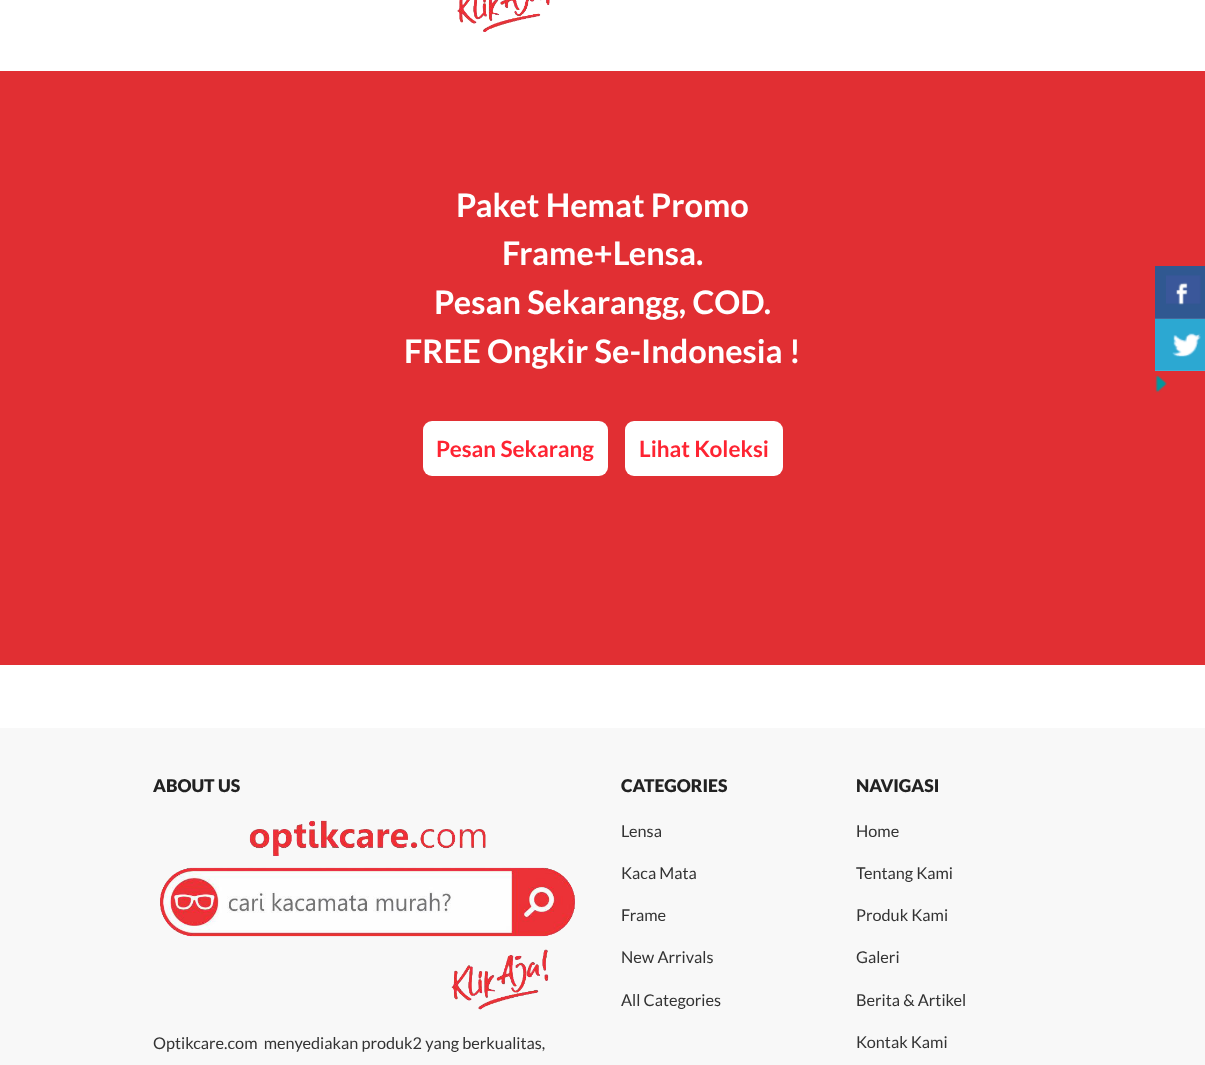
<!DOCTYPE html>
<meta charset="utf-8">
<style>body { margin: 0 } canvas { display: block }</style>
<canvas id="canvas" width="1205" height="1065"></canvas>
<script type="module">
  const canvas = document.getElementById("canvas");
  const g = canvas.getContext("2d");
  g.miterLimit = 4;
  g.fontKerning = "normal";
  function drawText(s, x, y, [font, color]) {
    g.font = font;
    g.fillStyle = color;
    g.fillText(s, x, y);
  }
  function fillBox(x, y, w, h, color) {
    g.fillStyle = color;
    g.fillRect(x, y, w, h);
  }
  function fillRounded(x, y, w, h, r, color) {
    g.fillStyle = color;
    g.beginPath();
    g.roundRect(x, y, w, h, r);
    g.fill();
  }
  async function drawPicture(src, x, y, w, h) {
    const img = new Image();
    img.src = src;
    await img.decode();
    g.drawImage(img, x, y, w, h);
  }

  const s1 = ["bold 32.5px Lato", "#FFFFFF"];
  const s2 = ["bold 22.5px Lato", "#FE2432"];
  const s3 = ["900 17.5px Lato", "#222222"];
  const s4 = ["16.25px Lato", "#333333"];

  fillBox(0, 0, 1205, 1065, "#FFFFFF");
  await drawPicture("pic1.png", 457, 0, 93, 32);
  fillBox(0, 71, 1205, 594, "#E12F33");
  drawText("Paket Hemat Promo", 456, 217, s1);
  drawText("Frame+Lensa.", 502, 265, s1);
  drawText("Pesan Sekarangg, COD.", 434, 314, s1);
  drawText("FREE Ongkir Se-Indonesia !", 404, 363, s1);
  fillRounded(423, 421, 185, 55, 9, "#FFFFFF");
  drawText("Pesan Sekarang", 436, 457, s2);
  fillRounded(625, 421, 158, 55, 9, "#FFFFFF");
  drawText("Lihat Koleksi", 639, 457, s2);
  fillBox(0, 728, 1205, 337, "#F8F8F8");
  drawText("ABOUT US", 153, 792, s3);
  await drawPicture("pic2.png", 160, 820, 415, 190);
  drawText("Optikcare.com  menyediakan produk2 yang berkualitas,", 153, 1049, s4);
  drawText("CATEGORIES", 621, 792, s3);
  drawText("Lensa", 621, 837, s4);
  drawText("Kaca Mata", 621, 879, s4);
  drawText("Frame", 621, 921, s4);
  drawText("New Arrivals", 621, 963, s4);
  drawText("All Categories", 621, 1006, s4);
  drawText("NAVIGASI", 856, 792, s3);
  drawText("Home", 856, 837, s4);
  drawText("Tentang Kami", 856, 879, s4);
  drawText("Produk Kami", 856, 921, s4);
  drawText("Galeri", 856, 963, s4);
  drawText("Berita & Artikel", 856, 1006, s4);
  drawText("Kontak Kami", 856, 1048, s4);
  fillBox(1155, 266, 50, 52, "#305891");
  fillBox(1155, 318, 50, 1, "#45699C");
  await drawPicture("pic3.png", 1166, 275, 35, 30);
  fillBox(1155, 319, 50, 51, "#2CA8D2");
  fillBox(1155, 370, 50, 1, "#41B1D7");
  await drawPicture("pic4.png", 1172, 333, 29, 24);
  await drawPicture("pic5.png", 1155, 375, 12, 18);
</script>
